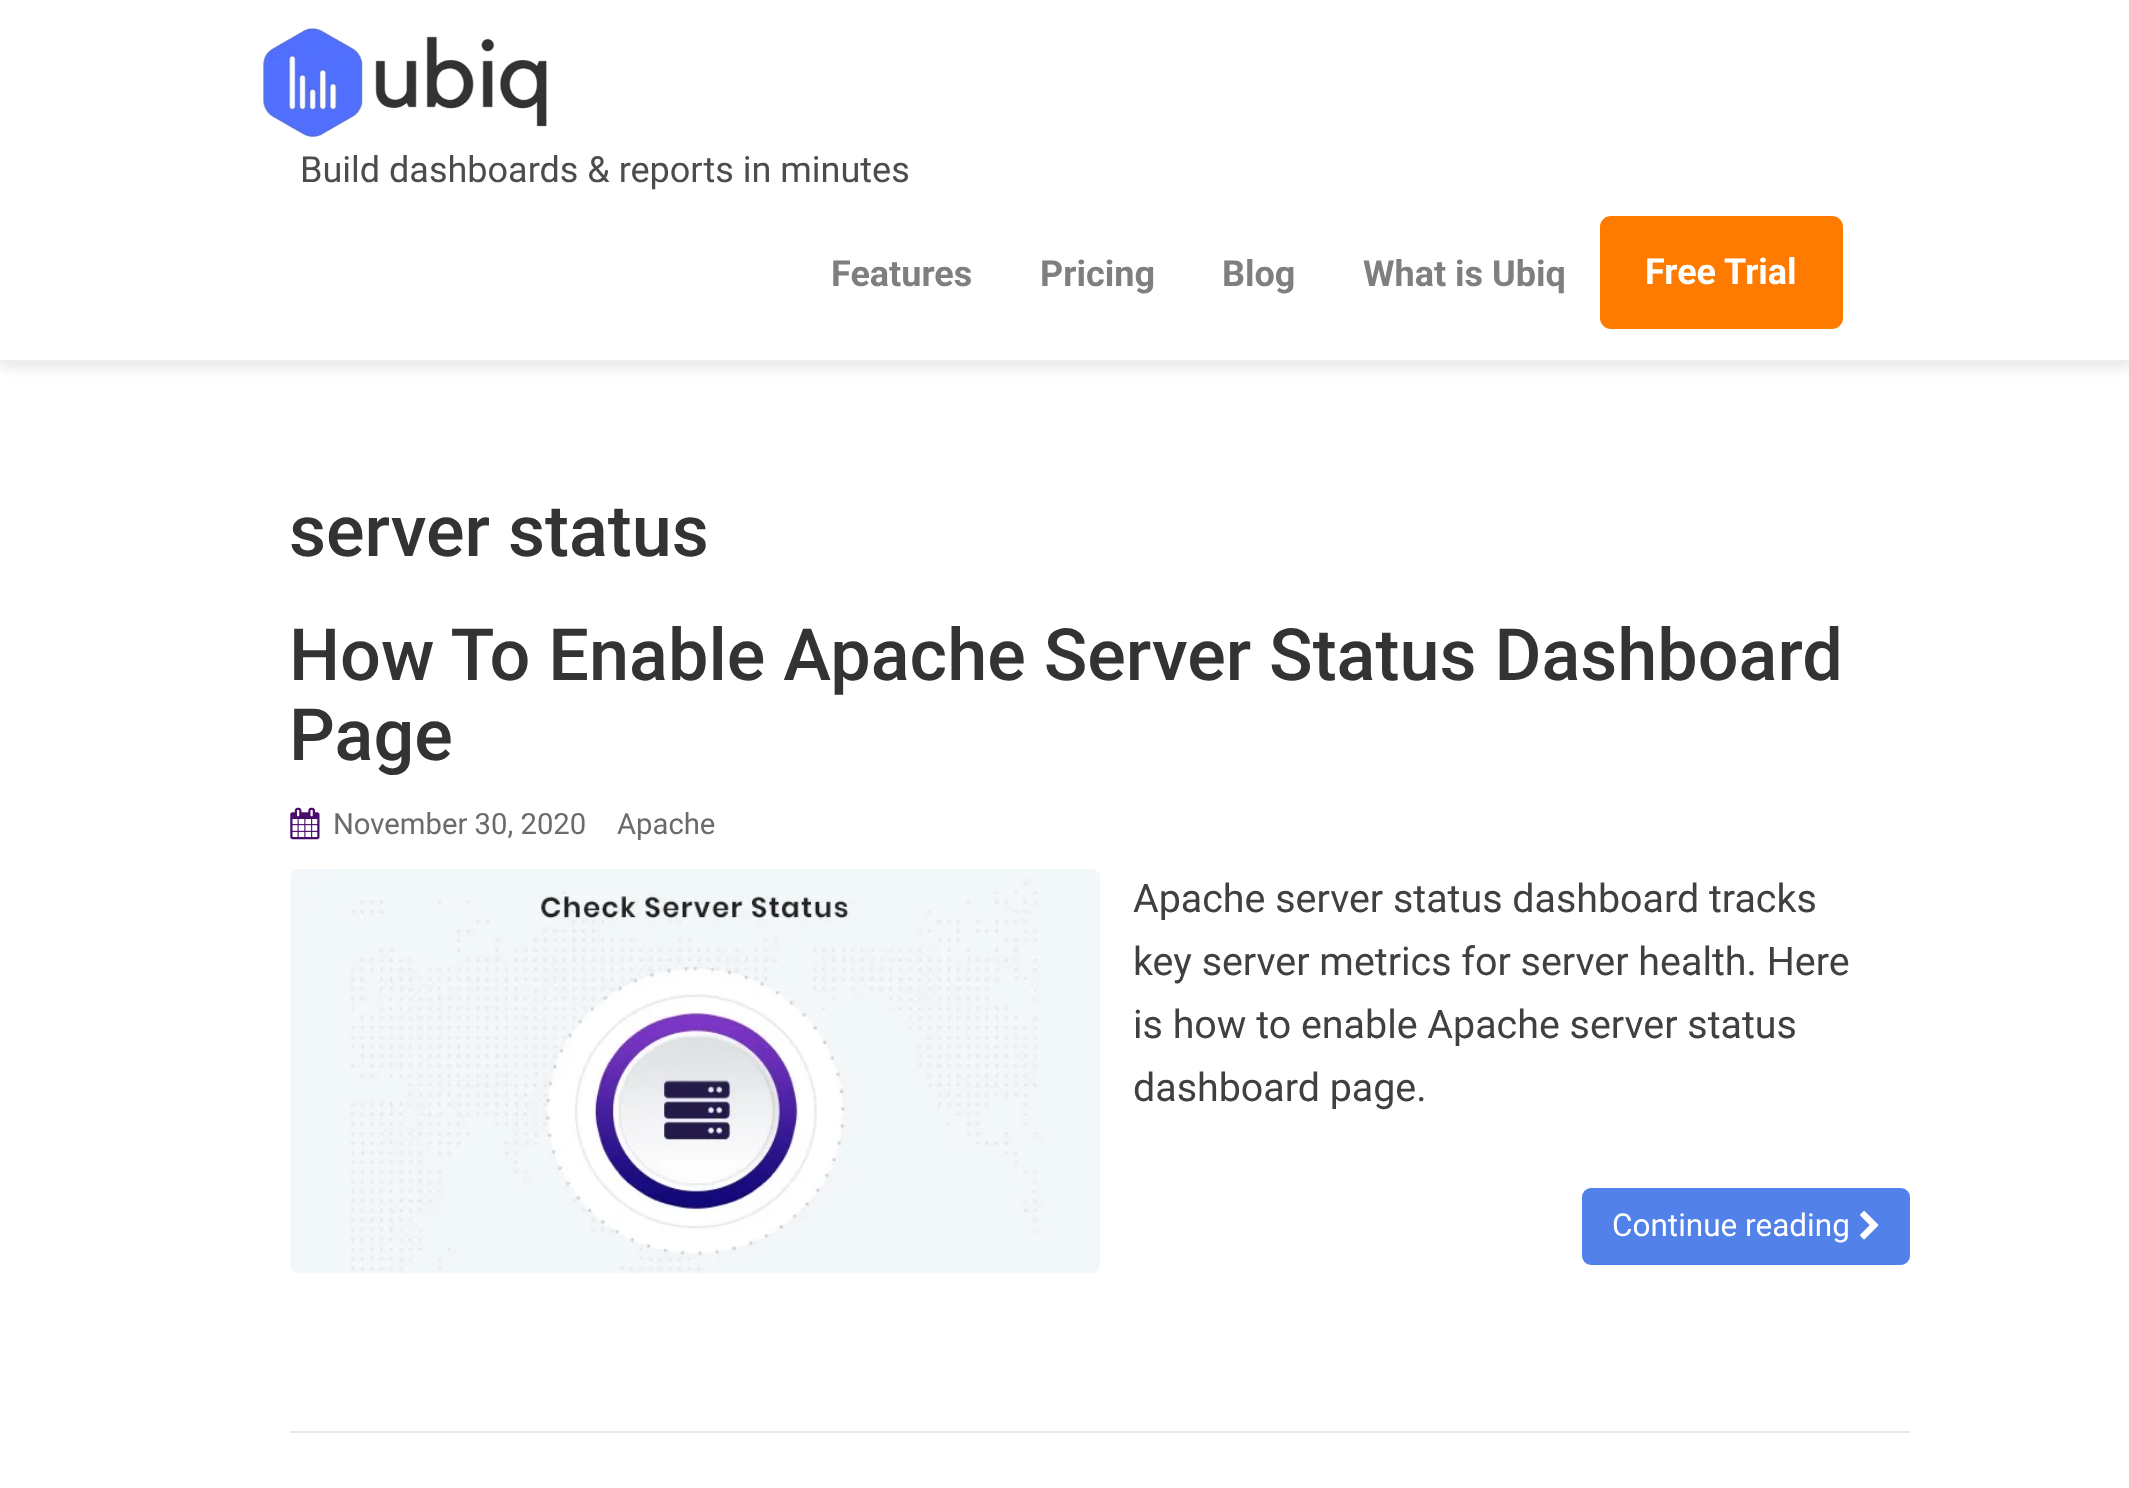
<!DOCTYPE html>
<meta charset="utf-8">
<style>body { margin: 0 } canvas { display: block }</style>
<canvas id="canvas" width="2129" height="1488"></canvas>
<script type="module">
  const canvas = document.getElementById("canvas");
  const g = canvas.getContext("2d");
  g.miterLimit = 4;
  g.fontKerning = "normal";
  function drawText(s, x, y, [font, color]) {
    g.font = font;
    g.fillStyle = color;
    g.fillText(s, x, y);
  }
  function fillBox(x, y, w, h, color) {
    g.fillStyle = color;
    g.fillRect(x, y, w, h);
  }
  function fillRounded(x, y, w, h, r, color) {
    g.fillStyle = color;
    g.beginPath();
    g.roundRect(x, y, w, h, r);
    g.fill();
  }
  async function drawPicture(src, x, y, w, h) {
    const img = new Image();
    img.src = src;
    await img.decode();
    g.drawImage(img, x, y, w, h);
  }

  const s1 = ["36px Roboto", "#4C4C4C"];
  const s2 = ["bold 36px Roboto", "#7F7F7F"];
  const s3 = ["bold 36px Roboto", "#FFFFFF"];
  const s4 = ["500 72px Roboto", "#333333"];
  const s5 = ["29.25px Roboto", "#6B6B6B"];
  const s6 = ["39.4px Roboto", "#404040"];
  const s7 = ["31.5px Roboto", "#FFFFFF"];

  fillBox(0, 0, 2129, 1488, "#FFFFFF");
  g.save();
  g.beginPath();
  g.rect(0, 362, 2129, 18);
  g.clip();
  g.fillStyle = "rgba(228, 228, 228, 0.75)";
  g.filter = "blur(5.5px)";
  g.beginPath();
  g.rect(0, 7, 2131, 362);
  g.fill();
  g.filter = "none";
  g.restore();
  fillBox(0, 360, 2129, 2, "#EEEEEE");
  await drawPicture("pic1.png", 263, 28, 284, 109);
  drawText("Build dashboards & reports in minutes", 300, 182, s1);
  drawText("Features", 831, 286, s2);
  drawText("Pricing", 1040, 286, s2);
  drawText("Blog", 1222, 286, s2);
  drawText("What is Ubiq", 1363, 286, s2);
  fillRounded(1600, 216, 243, 113, 11, "#FF7B00");
  drawText("Free Trial", 1645, 284, s3);
  drawText("server status", 289, 556, s4);
  drawText("How To Enable Apache Server Status Dashboard", 289, 680, s4);
  drawText("Page", 289, 760, s4);
  await drawPicture("pic2.png", 290, 807, 30, 33);
  drawText("November 30, 2020", 333, 834, s5);
  drawText("Apache", 617, 834, s5);
  await drawPicture("pic3.png", 290, 869, 810, 405);
  drawText("Apache server status dashboard tracks", 1133, 912, s6);
  drawText("key server metrics for server health. Here", 1133, 975, s6);
  drawText("is how to enable Apache server status", 1133, 1038, s6);
  drawText("dashboard page.", 1133, 1101, s6);
  g.fillStyle = "#5282E9";
  g.beginPath();
  g.roundRect(1583, 1189, 326, 75, 8);
  g.fill();
  g.strokeStyle = "#5282E9";
  g.lineWidth = 2;
  g.stroke();
  drawText("Continue reading", 1612, 1236, s7);
  await drawPicture("pic4.png", 1860, 1211, 19, 29);
  fillBox(290, 1431, 1620, 2, "#E8E8E8");
</script>
